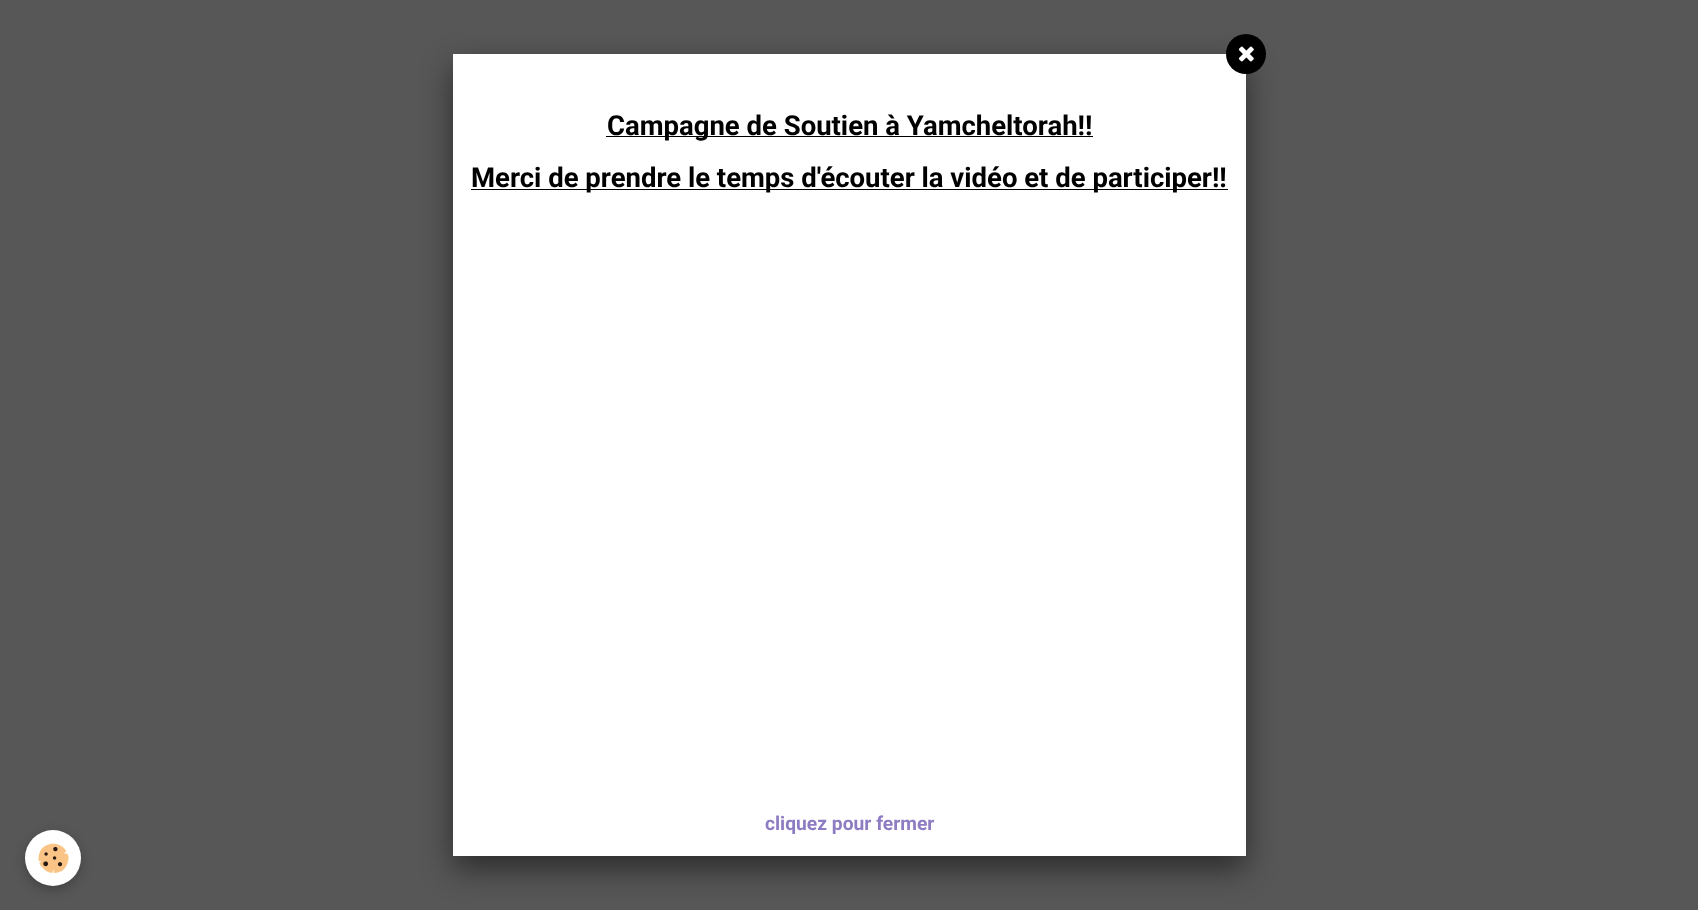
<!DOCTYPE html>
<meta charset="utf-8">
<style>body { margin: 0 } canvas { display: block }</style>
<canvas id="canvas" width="1698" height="910"></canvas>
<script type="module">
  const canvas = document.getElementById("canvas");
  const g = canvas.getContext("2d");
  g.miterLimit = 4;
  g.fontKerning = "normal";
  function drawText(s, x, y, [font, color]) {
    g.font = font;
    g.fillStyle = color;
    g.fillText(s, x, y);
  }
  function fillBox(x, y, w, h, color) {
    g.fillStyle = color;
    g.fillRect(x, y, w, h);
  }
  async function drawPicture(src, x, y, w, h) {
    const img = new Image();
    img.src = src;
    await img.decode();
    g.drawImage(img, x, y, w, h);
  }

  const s1 = ["bold 27.5px Roboto", "#000000"];
  const s2 = ["bold 19.25px Roboto", "#8E7CC3"];

  fillBox(0, 0, 1698, 910, "#575757");
  g.fillStyle = "rgba(0, 0, 0, 0.5)";
  g.filter = "blur(15.5px)";
  g.beginPath();
  g.rect(453, 66, 793, 803);
  g.fill();
  g.filter = "none";
  fillBox(453, 54, 793, 802, "#FFFFFF");
  g.fillStyle = "#000000";
  g.beginPath();
  g.arc(1246, 54, 20, 0, Math.PI * 2);
  g.fill();
  await drawPicture("pic1.png", 1238, 46, 16, 16);
  fillBox(606, 136, 487, 1, "#000000");
  drawText("Campagne de Soutien à Yamcheltorah!!", 607, 135, s1);
  fillBox(471, 189, 757, 1, "#000000");
  drawText("Merci de prendre le temps d'écouter la vidéo et de participer!!", 471, 187, s1);
  drawText("cliquez pour fermer", 765, 830, s2);
  g.fillStyle = "rgba(0, 0, 0, 0.24)";
  g.filter = "blur(6px)";
  g.beginPath();
  g.roundRect(25, 834, 56, 56, 28);
  g.fill();
  g.filter = "none";
  g.fillStyle = "#FFFFFF";
  g.beginPath();
  g.arc(53, 858, 28, 0, Math.PI * 2);
  g.fill();
  await drawPicture("pic2.png", 38, 843, 31, 30);
</script>
